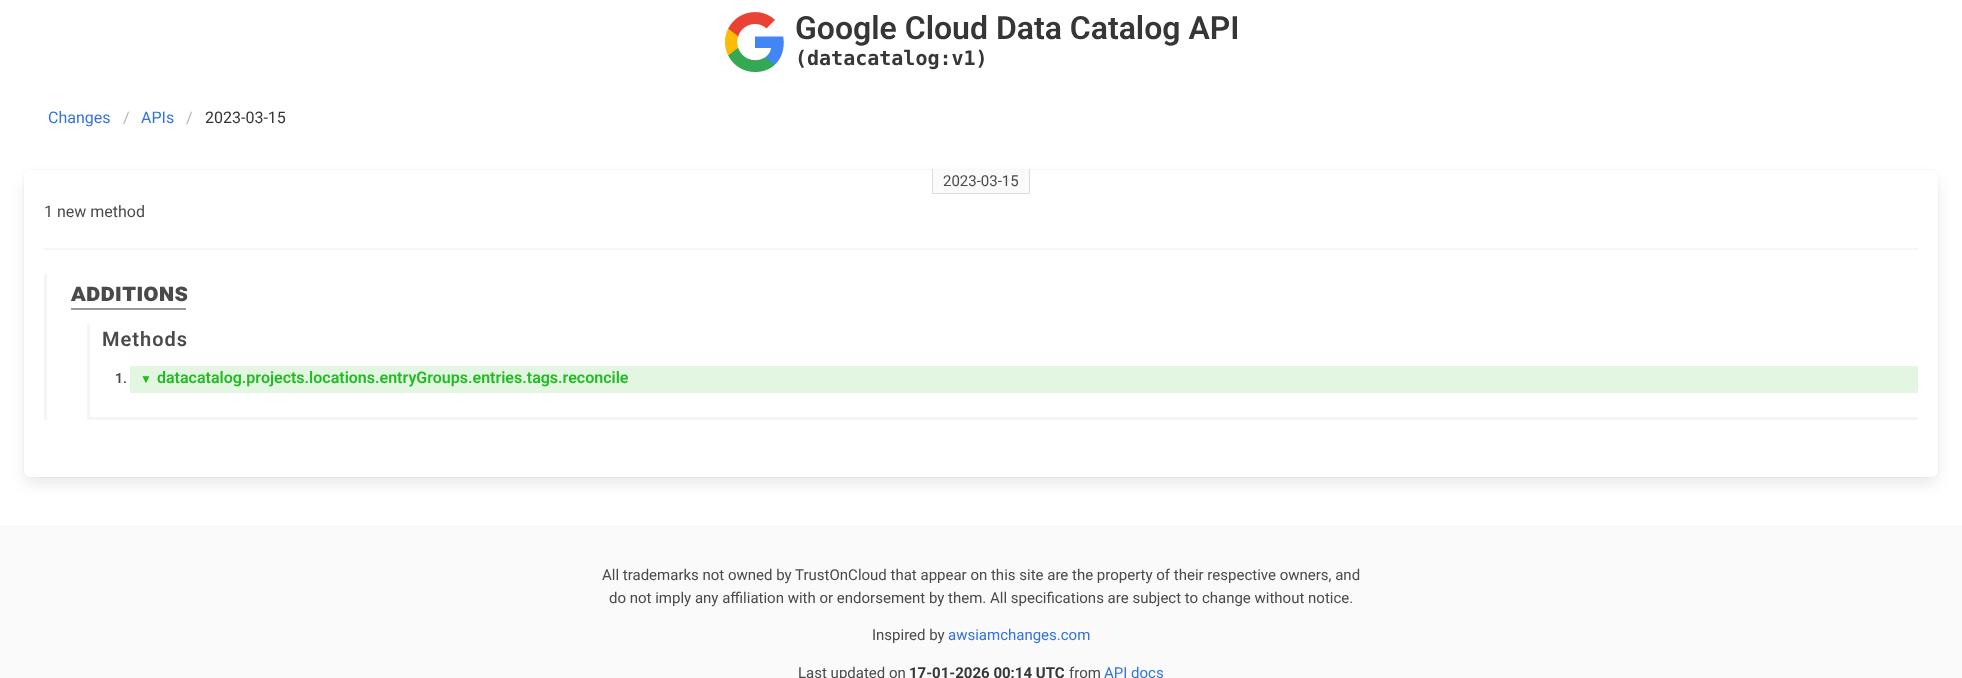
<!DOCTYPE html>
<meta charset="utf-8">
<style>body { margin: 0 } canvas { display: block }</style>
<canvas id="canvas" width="1962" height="678"></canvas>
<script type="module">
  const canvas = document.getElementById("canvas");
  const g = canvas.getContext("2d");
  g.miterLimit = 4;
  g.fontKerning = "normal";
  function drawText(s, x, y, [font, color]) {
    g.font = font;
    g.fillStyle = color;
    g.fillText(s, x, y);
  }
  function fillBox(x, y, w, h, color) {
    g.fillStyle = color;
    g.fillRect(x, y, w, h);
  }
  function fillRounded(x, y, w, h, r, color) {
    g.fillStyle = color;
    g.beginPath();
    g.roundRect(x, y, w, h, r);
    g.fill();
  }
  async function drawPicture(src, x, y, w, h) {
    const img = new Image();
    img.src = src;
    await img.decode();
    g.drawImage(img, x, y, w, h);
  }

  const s1 = ["600 32px Roboto", "#363636"];
  const s2 = ["bold 20px DejaVu Sans Mono", "#363636"];
  const s3 = ["16px Roboto", "#3273DC"];
  const s4 = ["16px Roboto", "#B5B5B5"];
  const s5 = ["16px Roboto", "#363636"];
  const s6 = ["15px Roboto", "#4A4A4A"];
  const s7 = ["16px Roboto", "#4A4A4A"];
  const s8 = ["900 25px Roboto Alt", "#4A4A4A"];
  const s9 = ["600 20px Roboto", "#4A4A4A"];
  const s10 = ["600 14px Roboto", "#4A4A4A"];
  const s11 = ["bold 12px Liberation Sans", "#22BB22"];
  const s12 = ["600 16px Roboto", "#22BB22"];
  const s13 = ["15px Roboto", "#3273DC"];
  const s14 = ["bold 15px Roboto", "#363636"];

  fillBox(0, 0, 1962, 678, "#FFFFFF");
  await drawPicture("pic1.png", 725, 12, 59, 60);
  drawText("Google Cloud Data Catalog API", 795, 39, s1);
  drawText("(datacatalog:v1)", 795, 65, s2);
  drawText("Changes", 48, 123, s3);
  drawText("/", 123, 123, s4);
  drawText("APIs", 141, 123, s3);
  drawText("/", 186, 123, s4);
  drawText("2023-03-15", 205, 123, s5);
  g.beginPath();
  g.roundRect(23.5, 169.5, 1915, 308, 6.5);
  g.strokeStyle = "#FAFAFA";
  g.stroke();
  g.fillStyle = "rgba(10, 10, 10, 0.1)";
  g.filter = "blur(8px)";
  g.beginPath();
  g.roundRect(26, 180, 1910, 303, 4);
  g.fill();
  g.filter = "none";
  fillRounded(24, 170, 1914, 307, 6, "#FFFFFF");
  fillBox(933, 170, 96, 23, "#FAFAFA");
  drawText("2023-03-15", 943, 186, s6);
  fillBox(1029, 169, 1, 25, "#DDDDDD");
  fillBox(932, 193, 98, 1, "#DDDDDD");
  fillBox(932, 169, 1, 25, "#DDDDDD");
  drawText("1 new method", 44, 217, s7);
  fillBox(44, 248, 1874, 2, "#F5F5F5");
  fillBox(44, 274, 3, 146, "#F5F5F5");
  g.letterSpacing = "0.5px";
  drawText("Additions", 71, 301, s8);
  fillBox(71, 308, 115, 2, "#999999");
  fillBox(87, 417, 1831, 3, "#F5F5F5");
  fillBox(87, 324, 3, 96, "#F5F5F5");
  g.letterSpacing = "1px";
  drawText("Methods", 102, 346, s9);
  g.letterSpacing = "0px";
  drawText("1.", 115, 383, s10);
  fillBox(130, 366, 1788, 27, "#E2F6E2");
  drawText("▼", 140, 383, s11);
  drawText("datacatalog.projects.locations.entryGroups.entries.tags.reconcile", 157, 383, s12);
  fillBox(0, 525, 1962, 153, "#FAFAFA");
  drawText("All trademarks not owned by TrustOnCloud that appear on this site are the property of their respective owners, and", 602, 580, s6);
  drawText("do not imply any affiliation with or endorsement by them. All specifications are subject to change without notice.", 609, 603, s6);
  drawText("Inspired by", 872, 640, s6);
  drawText("awsiamchanges.com", 948, 640, s13);
  drawText("Last updated on", 798, 678, s6);
  drawText("17-01-2026 00:14 UTC", 909, 678, s14);
  drawText("from", 1069, 678, s6);
  drawText("API docs", 1104, 678, s13);
</script>
